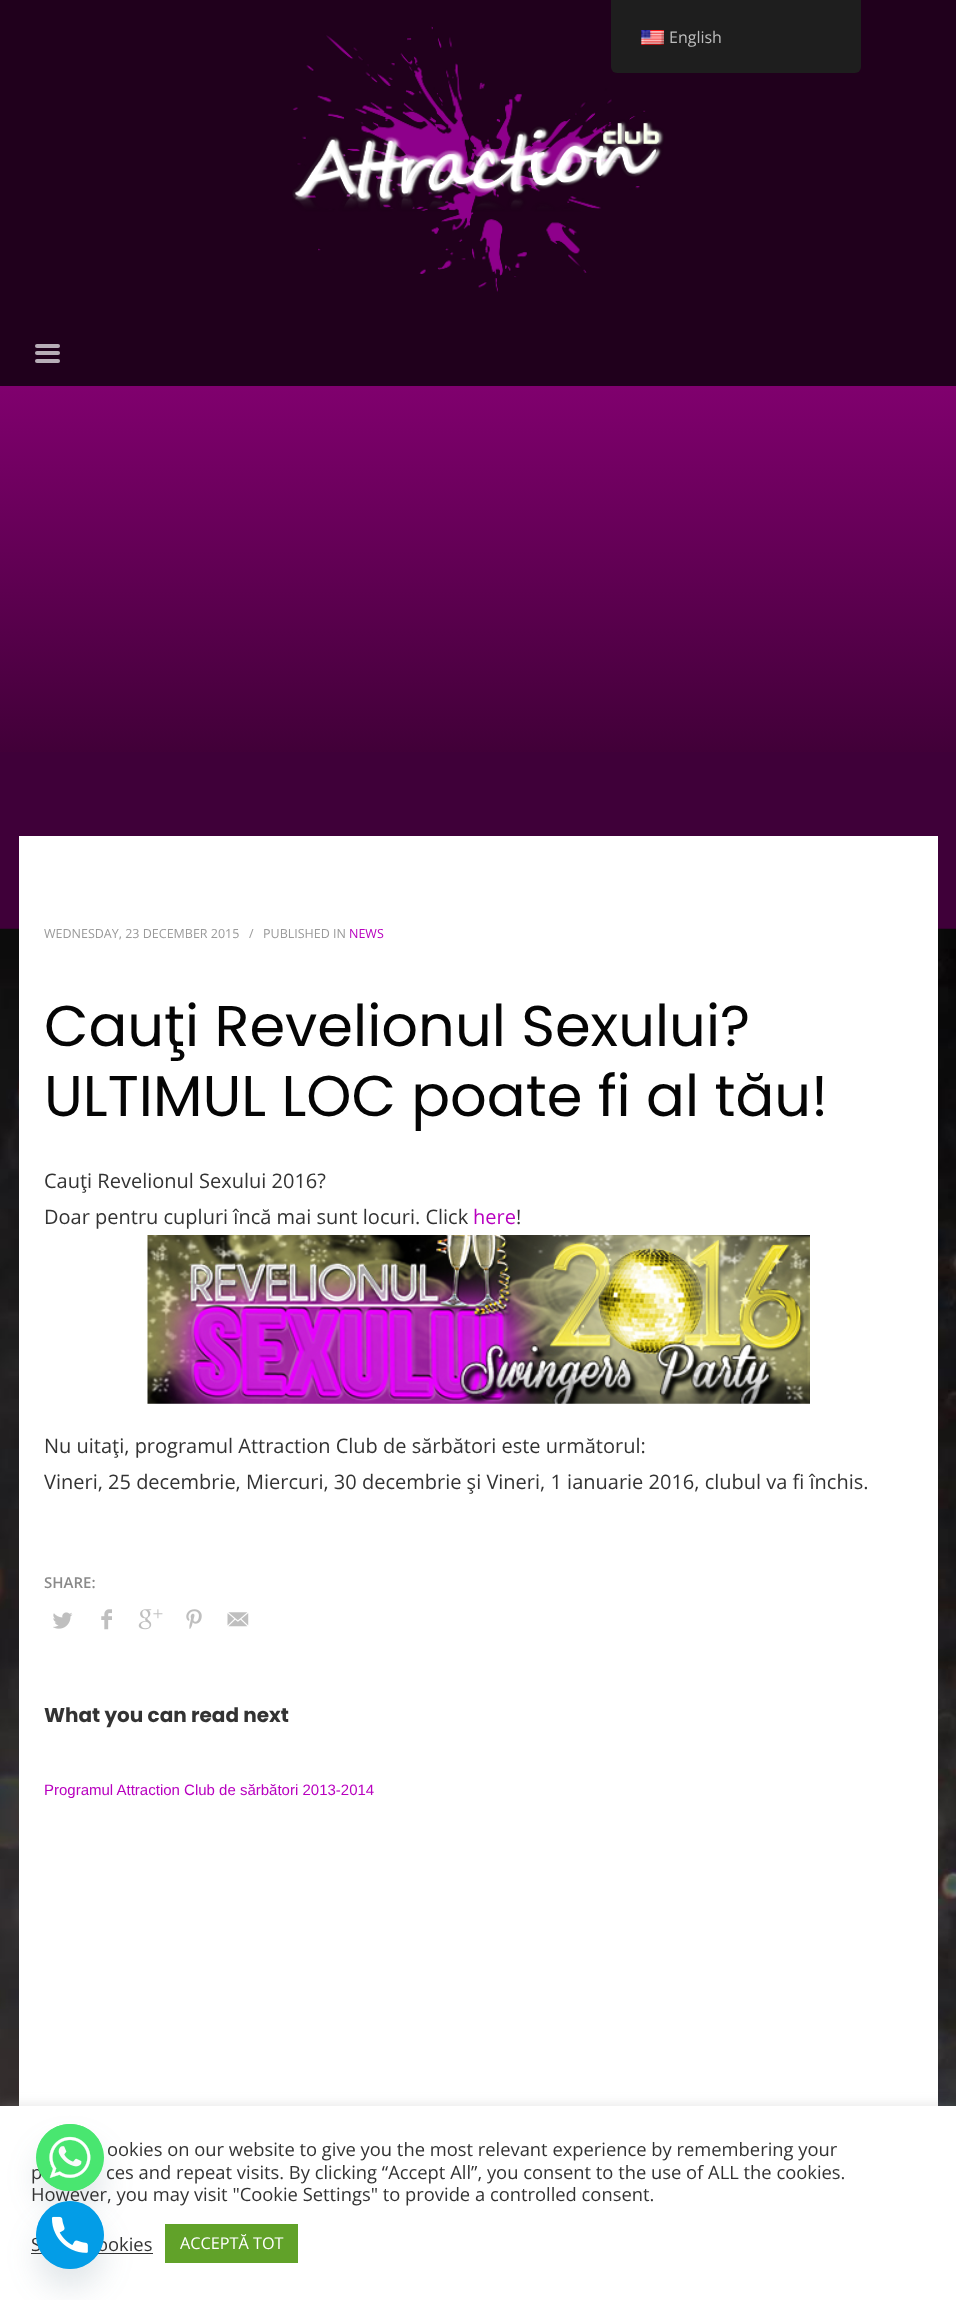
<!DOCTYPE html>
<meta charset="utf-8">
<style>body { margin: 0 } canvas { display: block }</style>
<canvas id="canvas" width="956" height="2300"></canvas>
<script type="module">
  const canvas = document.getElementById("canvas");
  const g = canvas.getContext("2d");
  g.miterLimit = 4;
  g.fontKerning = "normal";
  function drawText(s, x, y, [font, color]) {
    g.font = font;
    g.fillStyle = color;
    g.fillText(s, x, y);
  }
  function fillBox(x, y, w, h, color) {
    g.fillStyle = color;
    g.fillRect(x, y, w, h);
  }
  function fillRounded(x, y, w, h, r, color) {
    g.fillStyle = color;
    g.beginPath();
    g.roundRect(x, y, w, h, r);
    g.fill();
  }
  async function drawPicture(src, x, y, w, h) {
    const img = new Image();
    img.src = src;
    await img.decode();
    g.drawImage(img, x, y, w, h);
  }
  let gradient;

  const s1 = ["16px Open Sans", "#BDBDBD"];
  const s2 = ["12.5px Open Sans", "#9A9A9A"];
  const s3 = ["12.5px Open Sans", "#B800BF"];
  const s4 = ["57.5px Poppins", "#050505"];
  const s5 = ["20px Open Sans", "#333333"];
  const s6 = ["20px Open Sans", "#B800BF"];
  const s7 = ["600 15px Open Sans", "#8A8A8A"];
  const s8 = ["bold 20px Poppins", "#333333"];
  const s9 = ["15px Liberation Sans", "#B800BF"];
  const s10 = ["18.35px Open Sans", "#333333"];
  const s11 = ["16.25px Open Sans", "#FFFFFF"];

  fillBox(0, 0, 956, 2300, "#3F0039");
  fillBox(0, 0, 956, 386, "#20001C");
  await drawPicture("pic3.png", 292, 26, 372, 266);
  g.fillStyle = "#1E1E1E";
  g.beginPath();
  g.roundRect(611, 0, 250, 73, [0, 0, 6, 6]);
  g.fill();
  await drawPicture("pic1.png", 641, 30, 23, 15);
  drawText("English", 669, 43, s1);
  await drawPicture("pic2.png", 0, 928, 956, 1178);
  fillRounded(35, 344, 25, 4, 2, "#B7ADB7");
  fillRounded(35, 351, 25, 4, 2, "#B7ADB7");
  fillRounded(35, 359, 25, 4, 2, "#B7ADB7");
  gradient = g.createLinearGradient(478, 386, 478, 761);
  gradient.addColorStop(0, "#80006E");
  gradient.addColorStop(1, "#400037");
  g.fillStyle = gradient;
  g.fillRect(0, 386, 956, 366);
  fillBox(19, 836, 919, 1270, "#FFFFFF");
  drawText("WEDNESDAY, 23 DECEMBER 2015", 44, 938, s2);
  drawText("/", 249, 938, s2);
  drawText("PUBLISHED IN", 263, 938, s2);
  drawText("NEWS", 349, 938, s3);
  drawText("Cauţi Revelionul Sexului?", 44, 1046, s4);
  drawText("ULTIMUL LOC poate fi al tău!", 44, 1116, s4);
  drawText("Cauţi Revelionul Sexului 2016?", 44, 1188, s5);
  drawText("Doar pentru cupluri încă mai sunt locuri. Click", 44, 1224, s5);
  drawText("here", 473, 1224, s6);
  drawText("!", 516, 1224, s5);
  await drawPicture("pic4.png", 147, 1235, 663, 169);
  drawText("Nu uitaţi, programul Attraction Club de sărbători este următorul:", 44, 1453, s5);
  drawText("Vineri, 25 decembrie, Miercuri, 30 decembrie şi Vineri, 1 ianuarie 2016, clubul va fi închis.", 44, 1489, s5);
  drawText("SHARE:", 44, 1588, s7);
  await drawPicture("pic5.png", 53, 1612, 20, 17);
  await drawPicture("pic6.png", 101, 1609, 11, 21);
  await drawPicture("pic7.png", 138, 1609, 25, 21);
  await drawPicture("pic8.png", 186, 1609, 16, 20);
  await drawPicture("pic9.png", 227, 1612, 22, 15);
  drawText("What you can read next", 44, 1722, s8);
  drawText("Programul Attraction Club de sărbători 2013-2014", 44, 1795, s9);
  g.fillStyle = "rgba(172, 171, 171, 0.3)";
  g.filter = "blur(6px)";
  g.beginPath();
  g.rect(0, 2105, 956, 194);
  g.fill();
  g.filter = "none";
  fillBox(0, 2106, 956, 194, "#FFFFFF");
  fillBox(31, 2253, 122, 1, "#333333");
  g.fillStyle = "rgba(73, 104, 126, 0.16)";
  g.filter = "blur(15px)";
  g.beginPath();
  g.roundRect(36, 2144, 68, 67, 33.5);
  g.fill();
  g.filter = "none";
  drawText("p", 31, 2179, s10);
  drawText("However, you may visit \"Cookie Settings\" to provide a controlled consent.", 31, 2201, s10);
  fillRounded(36, 2124, 68, 67, 33.5, "#49E670");
  await drawPicture("pic10.png", 36, 2124, 68, 67);
  g.fillStyle = "rgba(73, 104, 126, 0.16)";
  g.filter = "blur(15px)";
  g.beginPath();
  g.roundRect(36, 2221, 68, 68, 34);
  g.fill();
  g.filter = "none";
  drawText("S", 31, 2251, s10);
  drawText("ookies", 97, 2251, s10);
  g.fillStyle = "#039DE7";
  g.beginPath();
  g.arc(70, 2235, 34, 0, Math.PI * 2);
  g.fill();
  await drawPicture("pic11.png", 36, 2201, 68, 68);
  drawText("ookies on our website to give you the most relevant experience by remembering your", 107, 2156, s10);
  drawText("ces and repeat visits. By clicking “Accept All”, you consent to the use of ALL the cookies.", 106, 2179, s10);
  fillBox(165, 2224, 133, 39, "#61A229");
  drawText("ACCEPTĂ TOT", 180, 2249, s11);
</script>
